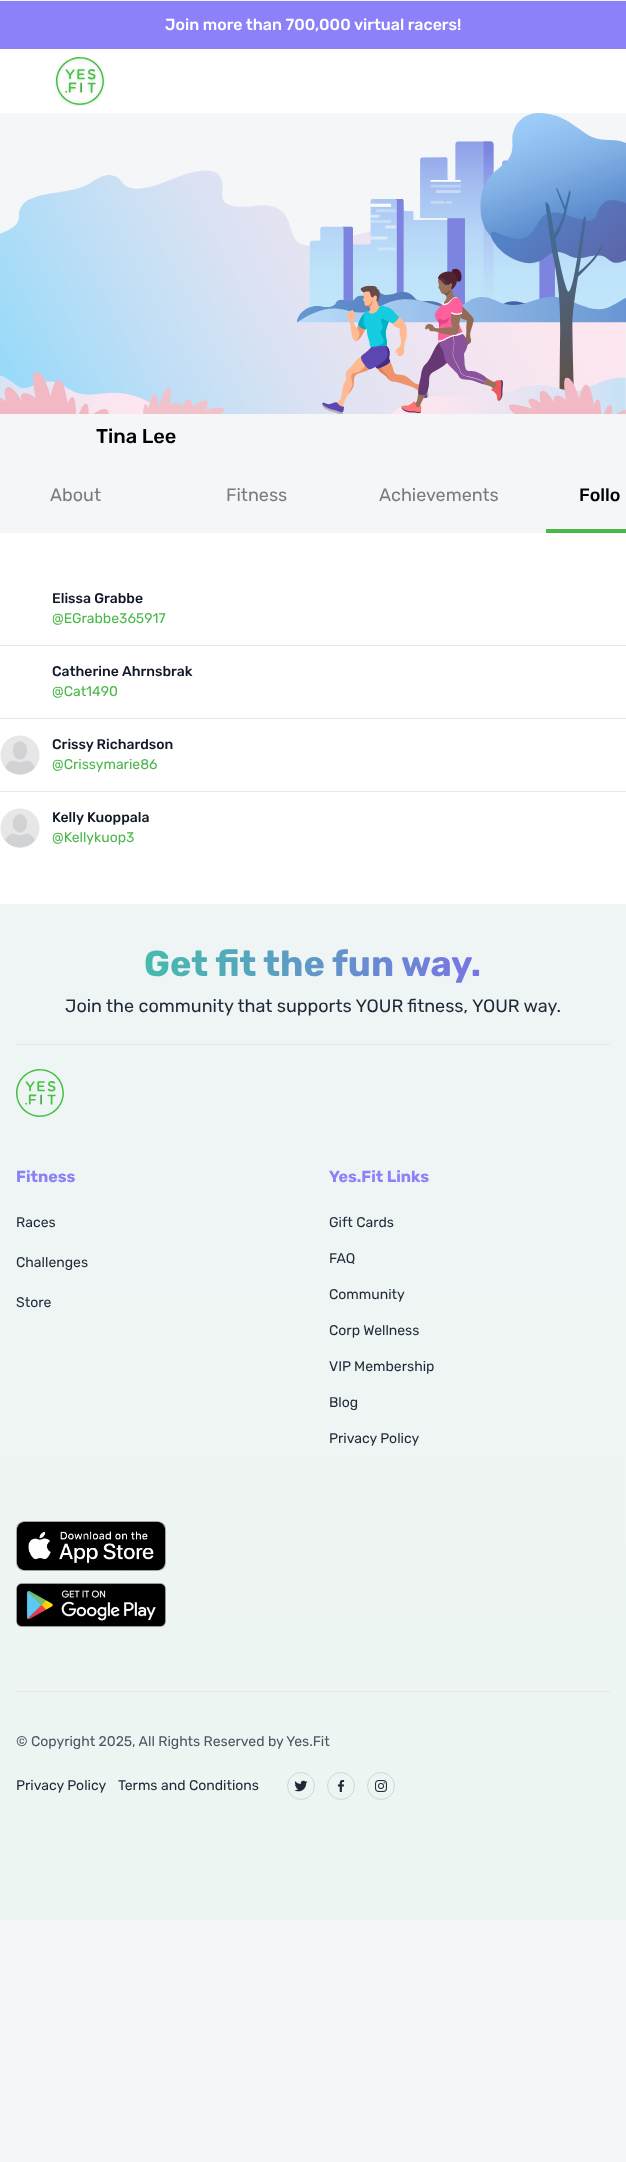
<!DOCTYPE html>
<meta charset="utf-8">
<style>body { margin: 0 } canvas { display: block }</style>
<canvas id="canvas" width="626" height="2162"></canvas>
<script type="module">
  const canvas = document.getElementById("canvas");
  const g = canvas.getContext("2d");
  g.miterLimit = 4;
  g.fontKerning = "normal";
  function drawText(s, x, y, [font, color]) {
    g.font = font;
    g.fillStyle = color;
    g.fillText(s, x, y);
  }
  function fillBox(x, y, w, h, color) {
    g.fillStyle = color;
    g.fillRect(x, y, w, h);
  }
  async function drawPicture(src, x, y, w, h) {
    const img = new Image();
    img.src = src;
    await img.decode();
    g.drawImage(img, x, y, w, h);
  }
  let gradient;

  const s1 = ["500 16px Rubik", "#FFFFFF"];
  const s2 = ["500 20px Rubik", "#000000"];
  const s3 = ["18px Rubik", "#7A7B7C"];
  const s4 = ["500 18px Rubik", "#000000"];
  const s5 = ["500 14px Rubik", "#111827"];
  const s6 = ["14px Rubik", "#49B848"];
  const s7 = ["18px Rubik", "#1F2937"];
  const s8 = ["bold 16px Rubik", "#8C81F8"];
  const s9 = ["14px Rubik", "#1F2937"];
  const s10 = ["14px Rubik", "#4B5563"];

  fillBox(0, 0, 626, 2162, "#F4F6F8");
  fillBox(0, 1, 626, 48, "#8C81F8");
  drawText("Join more than 700,000 virtual racers!", 165, 30, s1);
  fillBox(0, 49, 626, 64, "#FFFFFF");
  await drawPicture("pic1.png", 55, 57, 50, 49);
  await drawPicture("pic2.png", 0, 113, 626, 301);
  drawText("Tina Lee", 96, 443, s2);
  drawText("About", 50, 501, s3);
  drawText("Fitness", 226, 501, s3);
  drawText("Achievements", 379, 501, s3);
  drawText("Follo", 579, 501, s4);
  fillBox(546, 529, 80, 4, "#49B848");
  fillBox(0, 533, 626, 371, "#FFFFFF");
  drawText("Elissa Grabbe", 52, 603, s5);
  drawText("@EGrabbe365917", 52, 623, s6);
  fillBox(0, 645, 626, 1, "#E5E7EB");
  drawText("Catherine", 52, 676, s5);
  drawText("Ahrnsbrak", 122, 676, s5);
  drawText("@Cat1490", 52, 696, s6);
  fillBox(0, 718, 626, 1, "#E5E7EB");
  await drawPicture("pic3.png", 0, 735, 40, 40);
  drawText("Crissy Richardson", 52, 749, s5);
  drawText("@Crissymarie86", 52, 769, s6);
  fillBox(0, 791, 626, 1, "#E5E7EB");
  await drawPicture("pic3.png", 0, 808, 40, 40);
  drawText("Kelly", 52, 822, s5);
  drawText("Kuoppala", 87, 822, s5);
  drawText("@Kellykuop3", 52, 842, s6);
  gradient = g.createLinearGradient(313, 904, 313, 1920);
  gradient.addColorStop(0, "#EFF5F4");
  gradient.addColorStop(1, "#EDF5F3");
  g.fillStyle = gradient;
  g.fillRect(0, 904, 626, 1016);
  g.font = "bold 36px Rubik";
  gradient = g.createLinearGradient(32, 964, 594, 964);
  gradient.addColorStop(0, "#34D399");
  gradient.addColorStop(1, "#8B5CF6");
  g.fillStyle = gradient;
  g.fillText("Get fit the fun way.", 144, 976);
  drawText("Join the community that supports YOUR fitness, YOUR way.", 65, 1012, s7);
  fillBox(16, 1044, 594, 1, "#E5E7EB");
  await drawPicture("pic4.png", 16, 1069, 48, 48);
  drawText("Fitness", 16, 1182, s8);
  drawText("Races", 16, 1227, s9);
  drawText("Challenges", 16, 1267, s9);
  drawText("Store", 16, 1307, s9);
  drawText("Yes.Fit Links", 329, 1182, s8);
  drawText("Gift Cards", 329, 1227, s9);
  drawText("FAQ", 329, 1263, s9);
  drawText("Community", 329, 1299, s9);
  drawText("Corp Wellness", 329, 1335, s9);
  drawText("VIP Membership", 329, 1371, s9);
  drawText("Blog", 329, 1407, s9);
  drawText("Privacy Policy", 329, 1443, s9);
  await drawPicture("pic5.png", 16, 1521, 150, 50);
  await drawPicture("pic6.png", 16, 1583, 150, 44);
  fillBox(16, 1691, 594, 1, "#E5E7EB");
  drawText("© Copyright 2025, All Rights Reserved by Yes.Fit", 16, 1746, s10);
  drawText("Privacy Policy", 16, 1790, s9);
  drawText("Terms and Conditions", 118, 1790, s9);
  g.beginPath();
  g.arc(301, 1786, 13.5, 0, Math.PI * 2);
  g.strokeStyle = "#D1D5DB";
  g.stroke();
  await drawPicture("pic7.png", 294, 1780, 14, 12);
  g.beginPath();
  g.arc(341, 1786, 13.5, 0, Math.PI * 2);
  g.stroke();
  await drawPicture("pic8.png", 337, 1780, 8, 12);
  g.beginPath();
  g.arc(381, 1786, 13.5, 0, Math.PI * 2);
  g.stroke();
  await drawPicture("pic9.png", 375, 1780, 12, 12);
</script>
